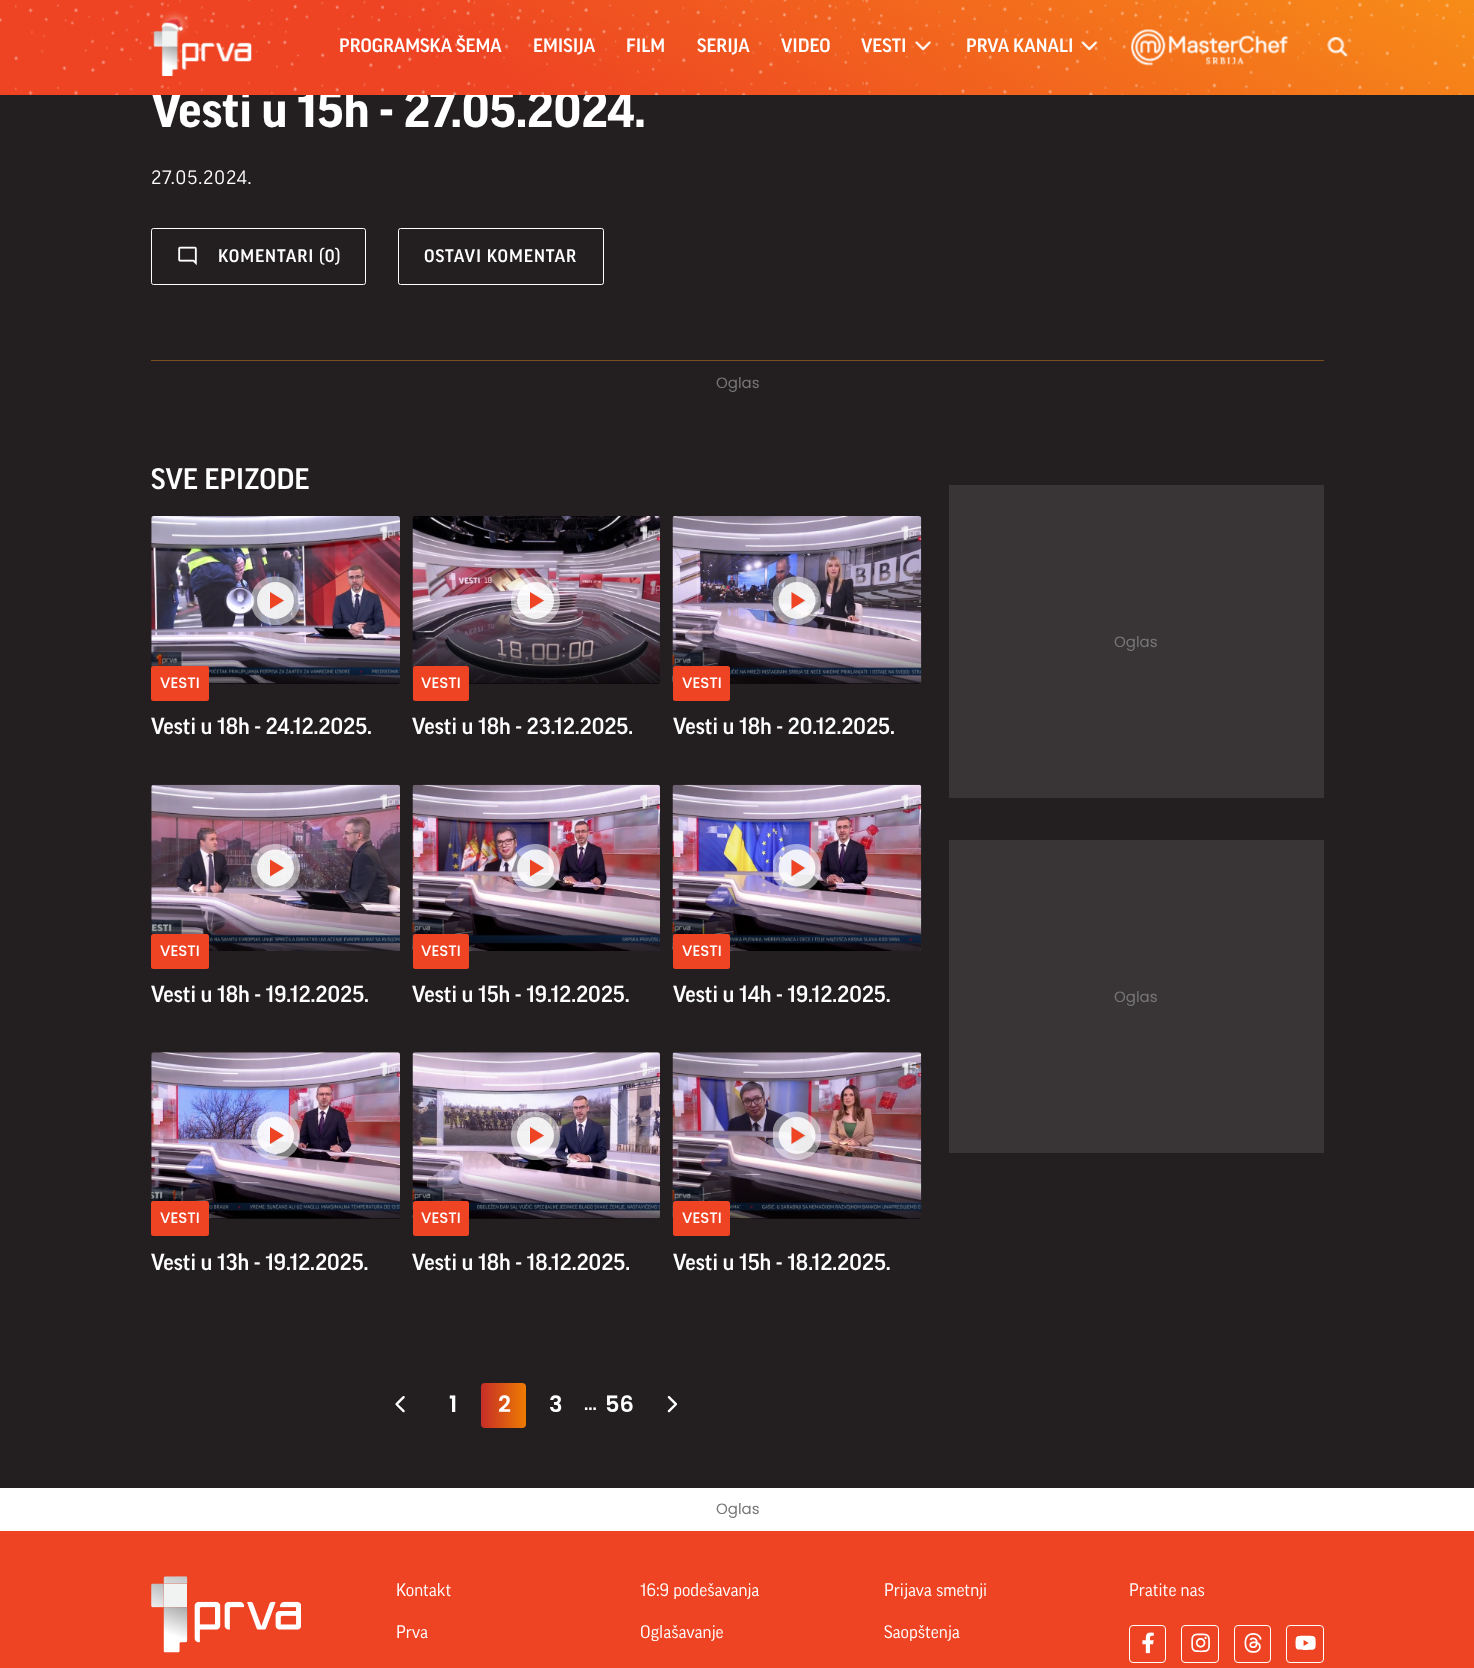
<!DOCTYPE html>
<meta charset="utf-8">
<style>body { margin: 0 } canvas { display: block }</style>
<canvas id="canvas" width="1474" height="1668"></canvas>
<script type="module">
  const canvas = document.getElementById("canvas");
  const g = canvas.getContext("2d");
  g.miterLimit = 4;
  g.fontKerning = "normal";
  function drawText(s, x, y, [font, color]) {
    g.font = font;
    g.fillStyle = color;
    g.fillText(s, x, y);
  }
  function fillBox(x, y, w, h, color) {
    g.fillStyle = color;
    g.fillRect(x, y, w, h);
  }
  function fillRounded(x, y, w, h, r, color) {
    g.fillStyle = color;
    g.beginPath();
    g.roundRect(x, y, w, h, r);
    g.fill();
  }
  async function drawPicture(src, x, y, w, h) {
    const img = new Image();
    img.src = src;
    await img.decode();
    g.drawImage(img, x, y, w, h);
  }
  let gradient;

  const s1 = ["bold 50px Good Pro", "#FFFFFF"];
  const s2 = ["500 18.75px Good Pro", "#FFFFFF"];
  const s3 = ["18.75px Good Pro", "#FFFFFF"];
  const s4 = ["500 17.5px Good Pro", "#FFFFFF"];
  const s5 = ["15px Poppins", "#777777"];
  const s6 = ["500 28.75px Good Pro", "#FFFFFF"];
  const s7 = ["500 15px Poppins", "#FFFFFF"];
  const s8 = ["500 22.5px Good Pro", "#FFFFFF"];
  const s9 = ["600 22.5px Poppins", "#FFFFFF"];
  const s10 = ["500 20px Good Pro", "#FFFFFF"];
  const s11 = ["17.5px Good Pro", "#FFFFFF"];

  fillBox(0, 0, 1474, 1668, "#FFFFFF");
  fillBox(0, 95, 1474, 309, "#231F20");
  drawText("Vesti u 15h - 27.05.2024.", 151, 127, s1);
  gradient = g.createLinearGradient(1102, -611, 544, 397);
  gradient.addColorStop(0, "#FDBD10");
  gradient.addColorStop(0.77, "#EE4423");
  g.fillStyle = gradient;
  g.fillRect(0, 0, 1474, 95);
  await drawPicture("pic1.png", 0, 0, 1474, 95);
  await drawPicture("pic2.png", 153, 11, 99, 65);
  drawText("PROGRAMSKA ŠEMA", 339, 52, s2);
  drawText("EMISIJA", 533, 52, s2);
  drawText("FILM", 626, 52, s2);
  drawText("SERIJA", 697, 52, s2);
  drawText("VIDEO", 781, 52, s2);
  drawText("VESTI", 861, 52, s2);
  await drawPicture("pic3.png", 915, 41, 17, 10);
  drawText("PRVA KANALI", 966, 52, s2);
  await drawPicture("pic4.png", 1081, 41, 17, 10);
  await drawPicture("pic5.png", 1131, 29, 158, 37);
  await drawPicture("pic6.png", 1327, 37, 22, 21);
  fillBox(151, 360, 1173, 1, "#784E1F");
  g.letterSpacing = "1px";
  drawText("27.05.2024.", 151, 184, s3);
  g.beginPath();
  g.roundRect(151.5, 228.5, 214, 56, 2);
  g.strokeStyle = "#FFFFFF";
  g.stroke();
  await drawPicture("pic7.png", 178, 246, 19, 20);
  g.letterSpacing = "0.9px";
  drawText("KOMENTARI (0)", 218, 262, s4);
  g.beginPath();
  g.roundRect(398.5, 228.5, 205, 56, 2);
  g.stroke();
  drawText("OSTAVI KOMENTAR", 424, 262, s4);
  g.letterSpacing = "0px";
  drawText("Oglas", 716, 388, s5);
  fillBox(0, 404, 1474, 1084, "#231F20");
  drawText("SVE EPIZODE", 151, 489, s6);
  await drawPicture("pic8.png", 151, 516, 249, 168);
  g.fillStyle = "rgba(255, 255, 255, 0.49)";
  g.beginPath();
  g.moveTo(251, 601);
  g.bezierCurveTo(251, 633, 300, 633, 300, 601);
  g.bezierCurveTo(300, 569, 251, 568, 251, 601);
  g.closePath();
  g.moveTo(285, 601);
  g.lineTo(270, 610);
  g.lineTo(270, 591);
  g.closePath();
  g.fill("evenodd");
  g.fillStyle = "rgba(255, 255, 255, 0.85)";
  g.beginPath();
  g.arc(275.5, 600.5, 18.5, 0, Math.PI * 2);
  g.fill();
  g.fillStyle = "#EE4423";
  g.beginPath();
  g.moveTo(270, 592);
  g.lineTo(270, 609);
  g.lineTo(284, 600.5);
  g.closePath();
  g.fill();
  gradient = g.createLinearGradient(276, 639, 276, 684);
  gradient.addColorStop(0, "rgba(0, 0, 0, 0)");
  gradient.addColorStop(1, "rgba(0, 0, 0, 0.63)");
  g.fillStyle = gradient;
  g.beginPath();
  g.roundRect(151, 639, 249, 45, [0, 0, 2.5, 2.5]);
  g.fill();
  fillRounded(151, 666, 58, 35, 2.5, "#EE4423");
  drawText("VESTI", 160, 688, s7);
  drawText("Vesti u 18h - 24.12.2025.", 151, 734, s8);
  await drawPicture("pic9.png", 412, 516, 248, 168);
  g.fillStyle = "rgba(255, 255, 255, 0.49)";
  g.beginPath();
  g.moveTo(511, 601);
  g.bezierCurveTo(511, 633, 560, 633, 560, 601);
  g.bezierCurveTo(560, 569, 511, 568, 511, 601);
  g.closePath();
  g.moveTo(545, 601);
  g.lineTo(530, 610);
  g.lineTo(530, 591);
  g.closePath();
  g.fill("evenodd");
  g.fillStyle = "rgba(255, 255, 255, 0.85)";
  g.beginPath();
  g.arc(535.5, 600.5, 18.5, 0, Math.PI * 2);
  g.fill();
  g.fillStyle = "#EE4423";
  g.beginPath();
  g.moveTo(530, 592);
  g.lineTo(530, 609);
  g.lineTo(544, 600.5);
  g.closePath();
  g.fill();
  gradient = g.createLinearGradient(536, 639, 536, 684);
  gradient.addColorStop(0, "rgba(0, 0, 0, 0)");
  gradient.addColorStop(1, "rgba(0, 0, 0, 0.63)");
  g.fillStyle = gradient;
  g.beginPath();
  g.roundRect(413, 639, 247, 45, [0, 0, 2.5, 2.5]);
  g.fill();
  fillRounded(413, 666, 56, 35, 2.5, "#EE4423");
  drawText("VESTI", 421, 688, s7);
  drawText("Vesti u 18h - 23.12.2025.", 412, 734, s8);
  await drawPicture("pic10.png", 672, 516, 250, 168);
  g.save();
  g.beginPath();
  g.rect(773, 576, 48, 49);
  g.clip();
  g.fillStyle = "rgba(255, 255, 255, 0.49)";
  g.beginPath();
  g.moveTo(772, 601);
  g.bezierCurveTo(772, 633, 821, 633, 821, 601);
  g.bezierCurveTo(821, 569, 772, 568, 772, 601);
  g.closePath();
  g.moveTo(807, 601);
  g.lineTo(791, 610);
  g.lineTo(791, 591);
  g.closePath();
  g.fill("evenodd");
  g.restore();
  g.fillStyle = "rgba(255, 255, 255, 0.85)";
  g.beginPath();
  g.arc(797, 600.5, 18.5, 0, Math.PI * 2);
  g.fill();
  g.fillStyle = "#EE4423";
  g.beginPath();
  g.moveTo(791.5, 592);
  g.lineTo(791.5, 609);
  g.lineTo(805, 600.5);
  g.closePath();
  g.fill();
  gradient = g.createLinearGradient(797, 639, 797, 684);
  gradient.addColorStop(0, "rgba(0, 0, 0, 0)");
  gradient.addColorStop(1, "rgba(0, 0, 0, 0.63)");
  g.fillStyle = gradient;
  g.beginPath();
  g.roundRect(673, 639, 248, 45, [0, 0, 2.5, 2.5]);
  g.fill();
  fillRounded(673, 666, 57, 35, 2.5, "#EE4423");
  drawText("VESTI", 682, 688, s7);
  drawText("Vesti u 18h - 20.12.2025.", 673, 734, s8);
  await drawPicture("pic11.png", 151, 784, 249, 167);
  g.fillStyle = "rgba(255, 255, 255, 0.49)";
  g.beginPath();
  g.moveTo(251, 868);
  g.bezierCurveTo(251, 900, 300, 900, 300, 868);
  g.bezierCurveTo(300, 836, 251, 836, 251, 868);
  g.closePath();
  g.moveTo(285, 868);
  g.lineTo(270, 877);
  g.lineTo(270, 859);
  g.closePath();
  g.fill("evenodd");
  g.fillStyle = "rgba(255, 255, 255, 0.85)";
  g.beginPath();
  g.arc(275.5, 868, 18.5, 0, Math.PI * 2);
  g.fill();
  g.fillStyle = "#EE4423";
  g.beginPath();
  g.moveTo(270, 859.5);
  g.lineTo(270, 876.5);
  g.lineTo(284, 868);
  g.closePath();
  g.fill();
  gradient = g.createLinearGradient(276, 906, 276, 951);
  gradient.addColorStop(0, "rgba(0, 0, 0, 0)");
  gradient.addColorStop(1, "rgba(0, 0, 0, 0.63)");
  g.fillStyle = gradient;
  g.beginPath();
  g.roundRect(151, 906, 249, 45, [0, 0, 2.5, 2.5]);
  g.fill();
  fillRounded(151, 934, 58, 35, 2.5, "#EE4423");
  drawText("VESTI", 160, 956, s7);
  drawText("Vesti u 18h - 19.12.2025.", 151, 1002, s8);
  await drawPicture("pic12.png", 412, 784, 248, 167);
  g.fillStyle = "rgba(255, 255, 255, 0.49)";
  g.beginPath();
  g.moveTo(511, 868);
  g.bezierCurveTo(511, 900, 560, 900, 560, 868);
  g.bezierCurveTo(560, 836, 511, 836, 511, 868);
  g.closePath();
  g.moveTo(545, 868);
  g.lineTo(530, 877);
  g.lineTo(530, 859);
  g.closePath();
  g.fill("evenodd");
  g.fillStyle = "rgba(255, 255, 255, 0.85)";
  g.beginPath();
  g.arc(535.5, 868, 18.5, 0, Math.PI * 2);
  g.fill();
  g.fillStyle = "#EE4423";
  g.beginPath();
  g.moveTo(530, 859.5);
  g.lineTo(530, 876.5);
  g.lineTo(544, 868);
  g.closePath();
  g.fill();
  gradient = g.createLinearGradient(536, 906, 536, 951);
  gradient.addColorStop(0, "rgba(0, 0, 0, 0)");
  gradient.addColorStop(1, "rgba(0, 0, 0, 0.63)");
  g.fillStyle = gradient;
  g.beginPath();
  g.roundRect(413, 906, 247, 45, [0, 0, 2.5, 2.5]);
  g.fill();
  fillRounded(413, 934, 56, 35, 2.5, "#EE4423");
  drawText("VESTI", 421, 956, s7);
  drawText("Vesti u 15h - 19.12.2025.", 412, 1002, s8);
  await drawPicture("pic13.png", 672, 784, 250, 167);
  g.save();
  g.beginPath();
  g.rect(773, 844, 48, 49);
  g.clip();
  g.fillStyle = "rgba(255, 255, 255, 0.49)";
  g.beginPath();
  g.moveTo(772, 868);
  g.bezierCurveTo(772, 900, 821, 900, 821, 868);
  g.bezierCurveTo(821, 836, 772, 836, 772, 868);
  g.closePath();
  g.moveTo(807, 868);
  g.lineTo(791, 877);
  g.lineTo(791, 859);
  g.closePath();
  g.fill("evenodd");
  g.restore();
  g.fillStyle = "rgba(255, 255, 255, 0.85)";
  g.beginPath();
  g.arc(797, 868, 18.5, 0, Math.PI * 2);
  g.fill();
  g.fillStyle = "#EE4423";
  g.beginPath();
  g.moveTo(791.5, 859.5);
  g.lineTo(791.5, 876.5);
  g.lineTo(805, 868);
  g.closePath();
  g.fill();
  gradient = g.createLinearGradient(797, 906, 797, 951);
  gradient.addColorStop(0, "rgba(0, 0, 0, 0)");
  gradient.addColorStop(1, "rgba(0, 0, 0, 0.63)");
  g.fillStyle = gradient;
  g.beginPath();
  g.roundRect(673, 906, 248, 45, [0, 0, 2.5, 2.5]);
  g.fill();
  fillRounded(673, 934, 57, 35, 2.5, "#EE4423");
  drawText("VESTI", 682, 956, s7);
  drawText("Vesti u 14h - 19.12.2025.", 673, 1002, s8);
  await drawPicture("pic14.png", 151, 1052, 249, 167);
  g.fillStyle = "rgba(255, 255, 255, 0.49)";
  g.beginPath();
  g.moveTo(251, 1136);
  g.bezierCurveTo(251, 1168, 300, 1168, 300, 1136);
  g.bezierCurveTo(300, 1104, 251, 1103, 251, 1136);
  g.closePath();
  g.moveTo(285, 1136);
  g.lineTo(270, 1145);
  g.lineTo(270, 1126);
  g.closePath();
  g.fill("evenodd");
  g.fillStyle = "rgba(255, 255, 255, 0.85)";
  g.beginPath();
  g.arc(275.5, 1135.5, 18.5, 0, Math.PI * 2);
  g.fill();
  g.fillStyle = "#EE4423";
  g.beginPath();
  g.moveTo(270, 1127);
  g.lineTo(270, 1144);
  g.lineTo(284, 1135.5);
  g.closePath();
  g.fill();
  gradient = g.createLinearGradient(276, 1174, 276, 1219);
  gradient.addColorStop(0, "rgba(0, 0, 0, 0)");
  gradient.addColorStop(1, "rgba(0, 0, 0, 0.63)");
  g.fillStyle = gradient;
  g.beginPath();
  g.roundRect(151, 1174, 249, 45, [0, 0, 2.5, 2.5]);
  g.fill();
  fillRounded(151, 1201, 58, 35, 2.5, "#EE4423");
  drawText("VESTI", 160, 1223, s7);
  drawText("Vesti u 13h - 19.12.2025.", 151, 1270, s8);
  await drawPicture("pic15.png", 412, 1052, 248, 167);
  g.fillStyle = "rgba(255, 255, 255, 0.49)";
  g.beginPath();
  g.moveTo(511, 1136);
  g.bezierCurveTo(511, 1168, 560, 1168, 560, 1136);
  g.bezierCurveTo(560, 1104, 511, 1103, 511, 1136);
  g.closePath();
  g.moveTo(545, 1136);
  g.lineTo(530, 1145);
  g.lineTo(530, 1126);
  g.closePath();
  g.fill("evenodd");
  g.fillStyle = "rgba(255, 255, 255, 0.85)";
  g.beginPath();
  g.arc(535.5, 1135.5, 18.5, 0, Math.PI * 2);
  g.fill();
  g.fillStyle = "#EE4423";
  g.beginPath();
  g.moveTo(530, 1127);
  g.lineTo(530, 1144);
  g.lineTo(544, 1135.5);
  g.closePath();
  g.fill();
  gradient = g.createLinearGradient(536, 1174, 536, 1219);
  gradient.addColorStop(0, "rgba(0, 0, 0, 0)");
  gradient.addColorStop(1, "rgba(0, 0, 0, 0.63)");
  g.fillStyle = gradient;
  g.beginPath();
  g.roundRect(413, 1174, 247, 45, [0, 0, 2.5, 2.5]);
  g.fill();
  fillRounded(413, 1201, 56, 35, 2.5, "#EE4423");
  drawText("VESTI", 421, 1223, s7);
  drawText("Vesti u 18h - 18.12.2025.", 412, 1270, s8);
  await drawPicture("pic16.png", 672, 1052, 250, 167);
  g.save();
  g.beginPath();
  g.rect(773, 1111, 48, 49);
  g.clip();
  g.fillStyle = "rgba(255, 255, 255, 0.49)";
  g.beginPath();
  g.moveTo(772, 1136);
  g.bezierCurveTo(772, 1168, 821, 1168, 821, 1136);
  g.bezierCurveTo(821, 1104, 772, 1103, 772, 1136);
  g.closePath();
  g.moveTo(807, 1136);
  g.lineTo(791, 1145);
  g.lineTo(791, 1126);
  g.closePath();
  g.fill("evenodd");
  g.restore();
  g.fillStyle = "rgba(255, 255, 255, 0.85)";
  g.beginPath();
  g.arc(797, 1135.5, 18.5, 0, Math.PI * 2);
  g.fill();
  g.fillStyle = "#EE4423";
  g.beginPath();
  g.moveTo(791.5, 1127);
  g.lineTo(791.5, 1144);
  g.lineTo(805, 1135.5);
  g.closePath();
  g.fill();
  gradient = g.createLinearGradient(797, 1174, 797, 1219);
  gradient.addColorStop(0, "rgba(0, 0, 0, 0)");
  gradient.addColorStop(1, "rgba(0, 0, 0, 0.63)");
  g.fillStyle = gradient;
  g.beginPath();
  g.roundRect(673, 1174, 248, 45, [0, 0, 2.5, 2.5]);
  g.fill();
  fillRounded(673, 1201, 57, 35, 2.5, "#EE4423");
  drawText("VESTI", 682, 1223, s7);
  drawText("Vesti u 15h - 18.12.2025.", 673, 1270, s8);
  await drawPicture("pic17.png", 395, 1396, 10, 17);
  drawText("1", 449, 1412, s9);
  gradient = g.createLinearGradient(528, 1405, 475, 1405);
  gradient.addColorStop(0, "#F07F00");
  gradient.addColorStop(1, "#C0232D");
  g.fillStyle = gradient;
  g.beginPath();
  g.roundRect(481, 1383, 45, 45, 4);
  g.fill();
  drawText("2", 498, 1412, s9);
  drawText("3", 549, 1412, s9);
  drawText("...", 584, 1410, s10);
  drawText("56", 605, 1412, s9);
  await drawPicture("pic18.png", 667, 1396, 10, 17);
  fillBox(949, 485, 375, 313, "#393536");
  drawText("Oglas", 1114, 647, s5);
  fillBox(949, 840, 375, 313, "#393536");
  drawText("Oglas", 1114, 1002, s5);
  drawText("Oglas", 716, 1514, s5);
  fillBox(0, 1531, 1474, 137, "#EE4423");
  await drawPicture("pic19.png", 151, 1576, 150, 77);
  drawText("Kontakt", 396, 1596, s11);
  drawText("16:9 podešavanja", 640, 1596, s11);
  drawText("Prijava smetnji", 884, 1596, s11);
  drawText("Prva", 396, 1638, s11);
  drawText("Oglašavanje", 640, 1638, s11);
  drawText("Saopštenja", 884, 1638, s11);
  drawText("Pratite nas", 1129, 1596, s11);
  g.beginPath();
  g.roundRect(1129.5, 1625.5, 36, 37, 3.5);
  g.stroke();
  await drawPicture("pic20.png", 1142, 1632, 12, 22);
  g.beginPath();
  g.roundRect(1181.5, 1625.5, 37, 37, 3.5);
  g.stroke();
  await drawPicture("pic21.png", 1191, 1633, 19, 20);
  g.beginPath();
  g.roundRect(1234.5, 1625.5, 36, 37, 3.5);
  g.stroke();
  await drawPicture("pic22.png", 1244, 1633, 18, 20);
  g.beginPath();
  g.roundRect(1286.5, 1625.5, 37, 37, 3.5);
  g.stroke();
  await drawPicture("pic23.png", 1295, 1635, 21, 15);
</script>
